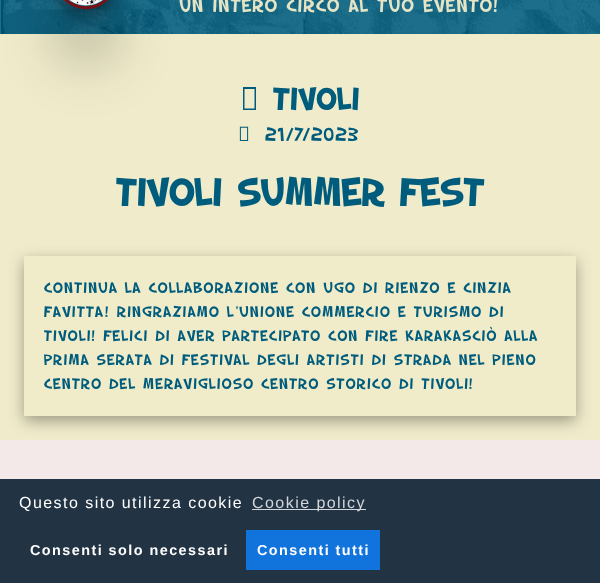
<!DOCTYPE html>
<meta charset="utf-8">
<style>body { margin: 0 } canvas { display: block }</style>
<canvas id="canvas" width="600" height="583"></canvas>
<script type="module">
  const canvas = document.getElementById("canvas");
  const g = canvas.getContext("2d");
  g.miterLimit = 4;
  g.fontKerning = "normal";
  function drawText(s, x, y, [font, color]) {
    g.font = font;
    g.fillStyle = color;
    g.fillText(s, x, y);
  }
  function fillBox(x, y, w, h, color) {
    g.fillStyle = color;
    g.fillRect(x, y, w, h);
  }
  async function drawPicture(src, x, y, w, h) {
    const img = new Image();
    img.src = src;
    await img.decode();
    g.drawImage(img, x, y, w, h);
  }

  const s1 = ["20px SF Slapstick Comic", "#E5E5C6"];
  const s2 = ["bold 32px SF Slapstick Comic", "#005C7D"];
  const s3 = ["20px SF Slapstick Comic", "#005C7D"];
  const s4 = ["bold 40px SF Slapstick Comic", "#005C7D"];
  const s5 = ["16px SF Slapstick Comic", "#005C7D"];
  const s6 = ["16px Liberation Sans", "#FFFFFF"];
  const s7 = ["16px Liberation Sans", "#D3D6DA"];
  const s8 = ["bold 14.4px Liberation Sans", "#FFFFFF"];

  fillBox(0, 0, 600, 583, "#F3E9E9");
  fillBox(0, 0, 600, 34, "#005C7D");
  await drawPicture("pic1.png", 0, 0, 600, 34);
  fillBox(0, 34, 600, 406, "#F0ECCB");
  g.save();
  g.beginPath();
  g.moveTo(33, 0);
  g.lineTo(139, 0);
  g.lineTo(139, 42);
  g.lineTo(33, 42);
  g.closePath();
  g.moveTo(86, -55);
  g.bezierCurveTo(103.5, -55, 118, -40.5, 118, -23);
  g.bezierCurveTo(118, -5.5, 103.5, 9, 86, 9);
  g.bezierCurveTo(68.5, 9, 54, -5.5, 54, -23);
  g.bezierCurveTo(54, -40.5, 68.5, -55, 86, -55);
  g.closePath();
  g.clip("evenodd");
  g.fillStyle = "rgba(0, 0, 0, 0.17)";
  g.filter = "blur(6.5px)";
  g.beginPath();
  g.roundRect(54, -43, 64, 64, 32);
  g.fill();
  g.filter = "none";
  g.restore();
  g.save();
  g.beginPath();
  g.moveTo(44, 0);
  g.lineTo(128, 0);
  g.lineTo(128, 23);
  g.lineTo(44, 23);
  g.closePath();
  g.moveTo(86, -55);
  g.bezierCurveTo(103.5, -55, 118, -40.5, 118, -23);
  g.bezierCurveTo(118, -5.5, 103.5, 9, 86, 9);
  g.bezierCurveTo(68.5, 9, 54, -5.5, 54, -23);
  g.bezierCurveTo(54, -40.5, 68.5, -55, 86, -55);
  g.closePath();
  g.clip("evenodd");
  g.fillStyle = "rgba(0, 0, 0, 0.12)";
  g.filter = "blur(3px)";
  g.beginPath();
  g.roundRect(54, -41, 64, 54, 32);
  g.fill();
  g.filter = "none";
  g.restore();
  g.save();
  g.beginPath();
  g.moveTo(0, 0);
  g.lineTo(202, 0);
  g.lineTo(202, 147);
  g.lineTo(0, 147);
  g.closePath();
  g.moveTo(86, -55);
  g.bezierCurveTo(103.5, -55, 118, -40.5, 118, -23);
  g.bezierCurveTo(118, -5.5, 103.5, 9, 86, 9);
  g.bezierCurveTo(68.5, 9, 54, -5.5, 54, -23);
  g.bezierCurveTo(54, -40.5, 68.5, -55, 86, -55);
  g.closePath();
  g.clip("evenodd");
  g.fillStyle = "rgba(0, 0, 0, 0.25)";
  g.filter = "blur(27.5px)";
  g.beginPath();
  g.roundRect(54, -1, 64, 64, 32);
  g.fill();
  g.filter = "none";
  g.restore();
  g.beginPath();
  g.moveTo(107.5, -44.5);
  g.bezierCurveTo(128.5, -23.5, 109.5, 13, 80, 7);
  g.bezierCurveTo(74, 5.5, 68.5, 3, 64.5, -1.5);
  g.strokeStyle = "#751215";
  g.lineWidth = 3;
  g.stroke();
  await drawPicture("pic2.png", 69, 0, 34, 6);
  g.letterSpacing = "1.45px";
  drawText("Un intero circo al tuo evento!", 179, 12, s1);
  g.fillStyle = "#005C7D";
  g.beginPath();
  g.moveTo(243, 110);
  g.lineTo(243, 87);
  g.lineTo(256, 87);
  g.lineTo(256, 110);
  g.closePath();
  g.moveTo(244.5, 108.5);
  g.lineTo(254.5, 108.5);
  g.lineTo(254.5, 89);
  g.lineTo(244.5, 89);
  g.closePath();
  g.fill();
  drawText("Tivoli", 273, 110, s2);
  await drawPicture("pic3.png", 239, 126, 10, 15);
  drawText("21/7/2023", 265, 141, s3);
  drawText("Tivoli Summer Fest", 116, 206, s4);
  g.fillStyle = "rgba(0, 0, 0, 0.35)";
  g.filter = "blur(7.5px)";
  g.beginPath();
  g.rect(24, 261, 552, 160);
  g.fill();
  g.filter = "none";
  fillBox(24, 256, 552, 160, "#F0ECC9");
  drawText("Continua la collaborazione con Ugo Di Rienzo e Cinzia", 44, 293, s5);
  drawText("Favitta! Ringraziamo l'Unione Commercio e Turismo di", 44, 317, s5);
  drawText("Tivoli! Felici di aver partecipato con Fire Karakasciò alla", 44, 341, s5);
  drawText("prima serata di festival degli artisti di strada nel pieno", 44, 365, s5);
  drawText("centro del meraviglioso centro storico di Tivoli!", 44, 389, s5);
  fillBox(0, 479, 600, 104, "#223344");
  drawText("Questo sito utilizza cookie", 19, 508, s6);
  fillBox(252, 509, 114, 1, "#D3D6DA");
  drawText("Cookie policy", 252, 508, s7);
  drawText("Consenti solo necessari", 30, 555, s8);
  fillBox(246, 530, 134, 40, "#1174DD");
  drawText("Consenti tutti", 257, 555, s8);
</script>
